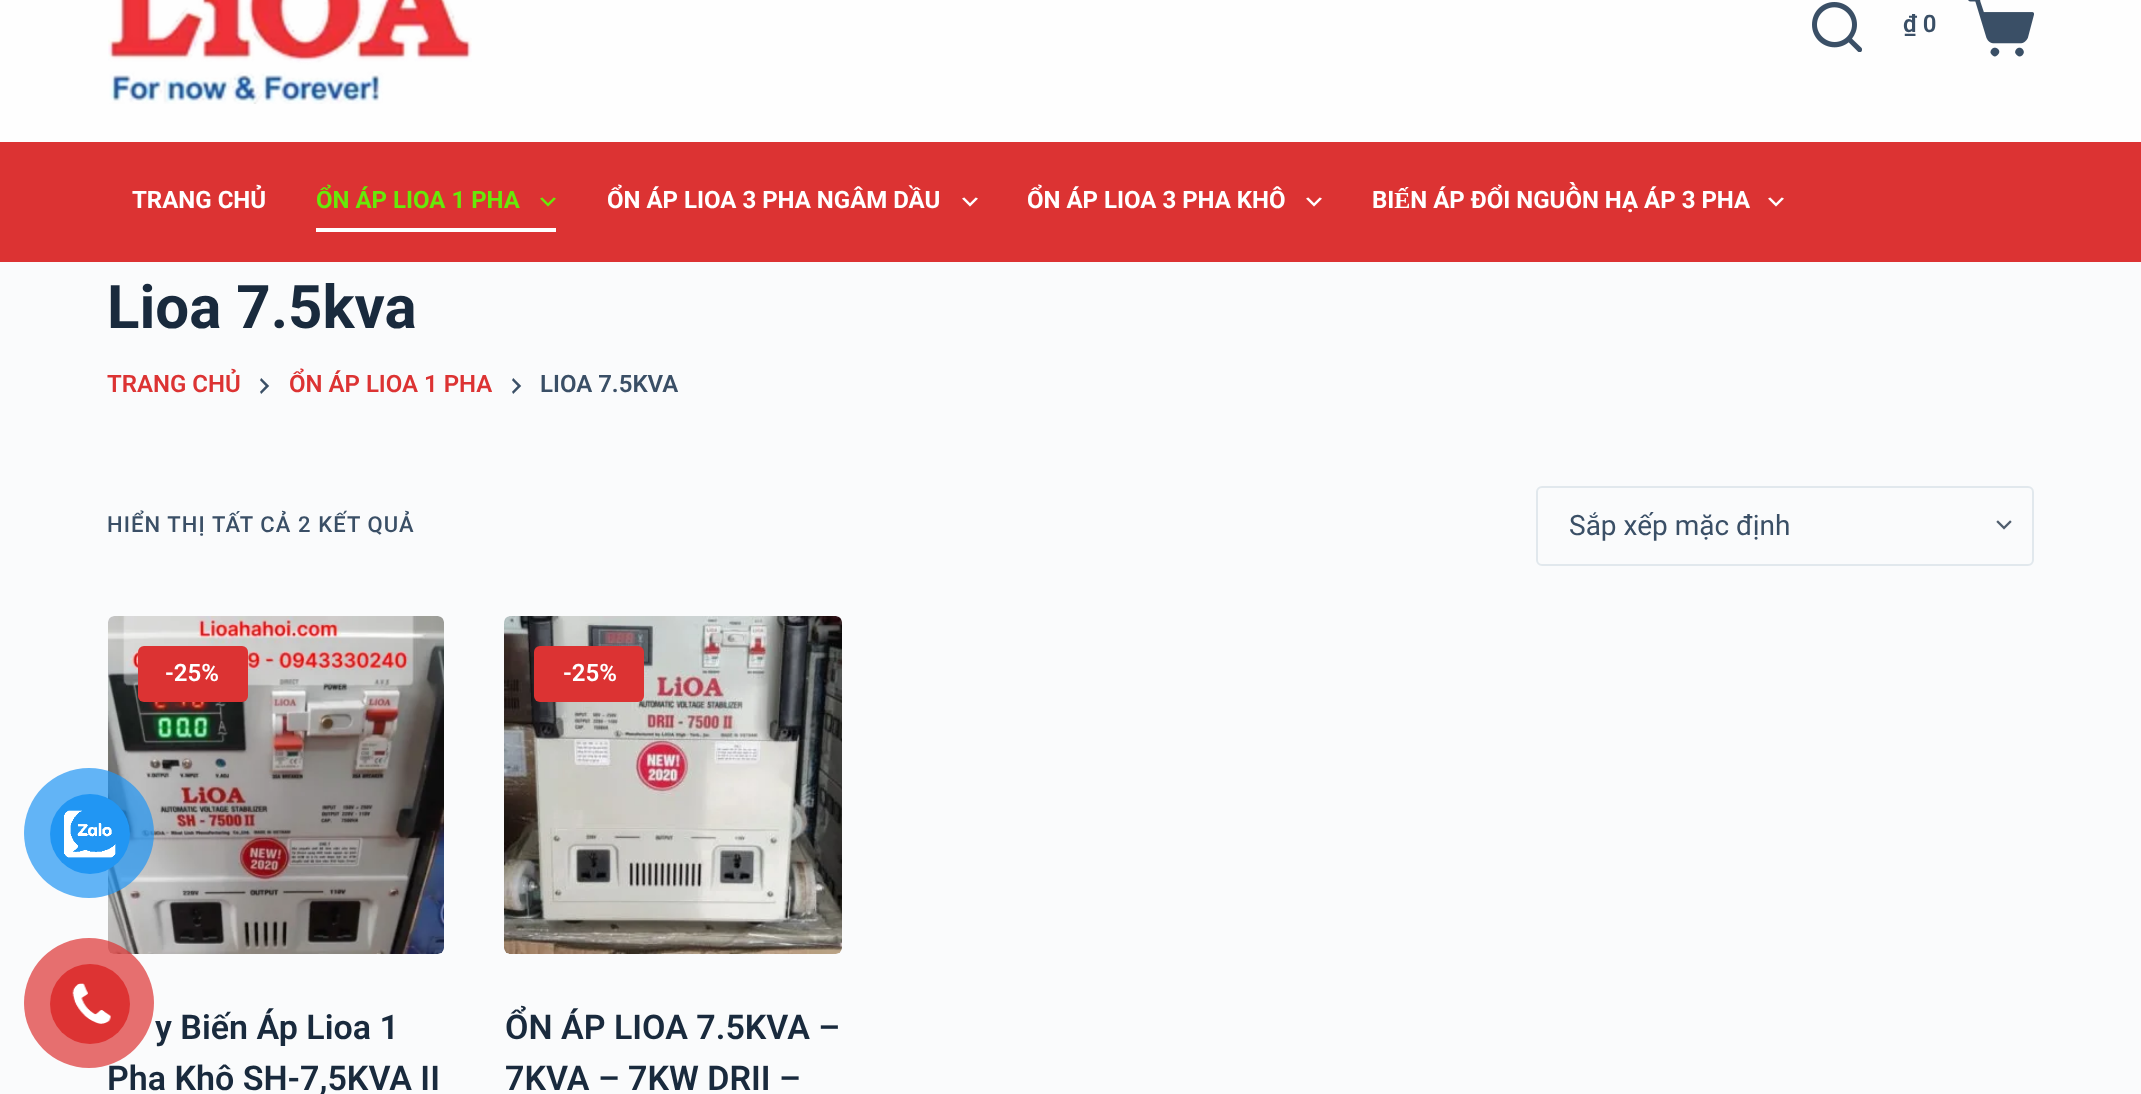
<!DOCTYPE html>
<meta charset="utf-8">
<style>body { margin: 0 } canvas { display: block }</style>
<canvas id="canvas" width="2141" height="1094"></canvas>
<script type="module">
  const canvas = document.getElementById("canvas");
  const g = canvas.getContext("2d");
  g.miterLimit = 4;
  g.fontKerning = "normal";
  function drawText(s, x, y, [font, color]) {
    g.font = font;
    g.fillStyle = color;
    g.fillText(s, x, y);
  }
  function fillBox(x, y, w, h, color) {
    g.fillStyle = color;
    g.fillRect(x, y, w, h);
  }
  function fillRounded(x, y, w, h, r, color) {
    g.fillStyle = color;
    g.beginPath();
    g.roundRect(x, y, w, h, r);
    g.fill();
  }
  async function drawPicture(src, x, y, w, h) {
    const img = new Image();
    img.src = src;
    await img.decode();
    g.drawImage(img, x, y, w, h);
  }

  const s1 = ["600 34px Roboto", "#192A3D"];
  const s2 = ["600 24px Roboto", "#3A4F66"];
  const s3 = ["bold 24px Roboto", "#FFFFFF"];
  const s4 = ["bold 24px Roboto", "#67E909"];
  const s5 = ["bold 60px Roboto", "#192A3D"];
  const s6 = ["600 24px Roboto", "#DC3333"];
  const s7 = ["500 22px Roboto", "#3A4F66"];
  const s8 = ["28px Roboto", "#3A4F66"];
  const s9 = ["600 24px Roboto", "#FFFFFF"];

  fillBox(0, 0, 2141, 1094, "#FAFBFC");
  await drawPicture("pic10.png", 108, 616, 336, 338);
  g.fillStyle = "rgba(33, 150, 243, 0.7)";
  g.beginPath();
  g.arc(89, 833, 65, 0, Math.PI * 2);
  g.fill();
  g.fillStyle = "#2196F3";
  g.beginPath();
  g.arc(90, 834, 40, 0, Math.PI * 2);
  g.fill();
  await drawPicture("pic1.png", 64, 810, 52, 48);
  drawText("Pha Khô SH-7,5KVA II", 107, 1090, s1);
  g.fillStyle = "rgba(221, 51, 51, 0.7)";
  g.beginPath();
  g.arc(89, 1003, 65, 0, Math.PI * 2);
  g.fill();
  g.fillStyle = "#DD3333";
  g.beginPath();
  g.arc(90, 1004, 40, 0, Math.PI * 2);
  g.fill();
  await drawPicture("pic2.png", 72, 983, 39, 41);
  fillBox(0, 0, 2141, 142, "#FEFEFE");
  await drawPicture("pic3.png", 108, 0, 364, 104);
  await drawPicture("pic4.png", 1812, 2, 50, 50);
  drawText("₫ 0", 1903, 32, s2);
  await drawPicture("pic5.png", 1968, 0, 66, 57);
  fillBox(0, 142, 2141, 120, "#DC3333");
  drawText("TRANG CHỦ", 132, 208, s3);
  drawText("ỔN ÁP LIOA 1 PHA", 316, 208, s4);
  await drawPicture("pic6.png", 540, 197, 16, 10);
  fillBox(316, 228, 240, 4, "#FFFFFF");
  drawText("ỔN ÁP LIOA 3 PHA NGÂM DẦU", 607, 208, s3);
  await drawPicture("pic7.png", 962, 197, 16, 10);
  drawText("ỔN ÁP LIOA 3 PHA KHÔ", 1027, 208, s3);
  await drawPicture("pic7.png", 1306, 197, 16, 10);
  drawText("BIẾN ÁP ĐỔI NGUỒN HẠ ÁP 3 PHA", 1372, 208, s3);
  await drawPicture("pic7.png", 1768, 197, 16, 10);
  drawText("Lioa 7.5kva", 107, 328, s5);
  drawText("TRANG CHỦ", 107, 392, s6);
  await drawPicture("pic8.png", 260, 378, 10, 16);
  drawText("ỔN ÁP LIOA 1 PHA", 289, 392, s6);
  await drawPicture("pic8.png", 512, 378, 10, 16);
  drawText("LIOA 7.5KVA", 540, 392, s2);
  g.letterSpacing = "1.1px";
  drawText("HIỂN THỊ TẤT CẢ 2 KẾT QUẢ", 107, 532, s7);
  await drawPicture("pic9.png", 1996, 520, 16, 10);
  g.beginPath();
  g.roundRect(1537, 487, 496, 78, 5);
  g.strokeStyle = "#E1E8ED";
  g.lineWidth = 2;
  g.stroke();
  g.letterSpacing = "0px";
  drawText("Sắp xếp mặc định", 1569, 535, s8);
  fillRounded(138, 646, 110, 56, 6, "#DC3333");
  drawText("-25%", 165, 681, s9);
  drawText("y Biến Áp Lioa 1", 155, 1039, s1);
  await drawPicture("pic11.png", 504, 616, 338, 338);
  fillRounded(534, 646, 110, 56, 6, "#DC3333");
  drawText("-25%", 563, 681, s9);
  drawText("ỔN ÁP LIOA 7.5KVA –", 505, 1039, s1);
  drawText("7KVA – 7KW DRII –", 505, 1090, s1);
</script>
